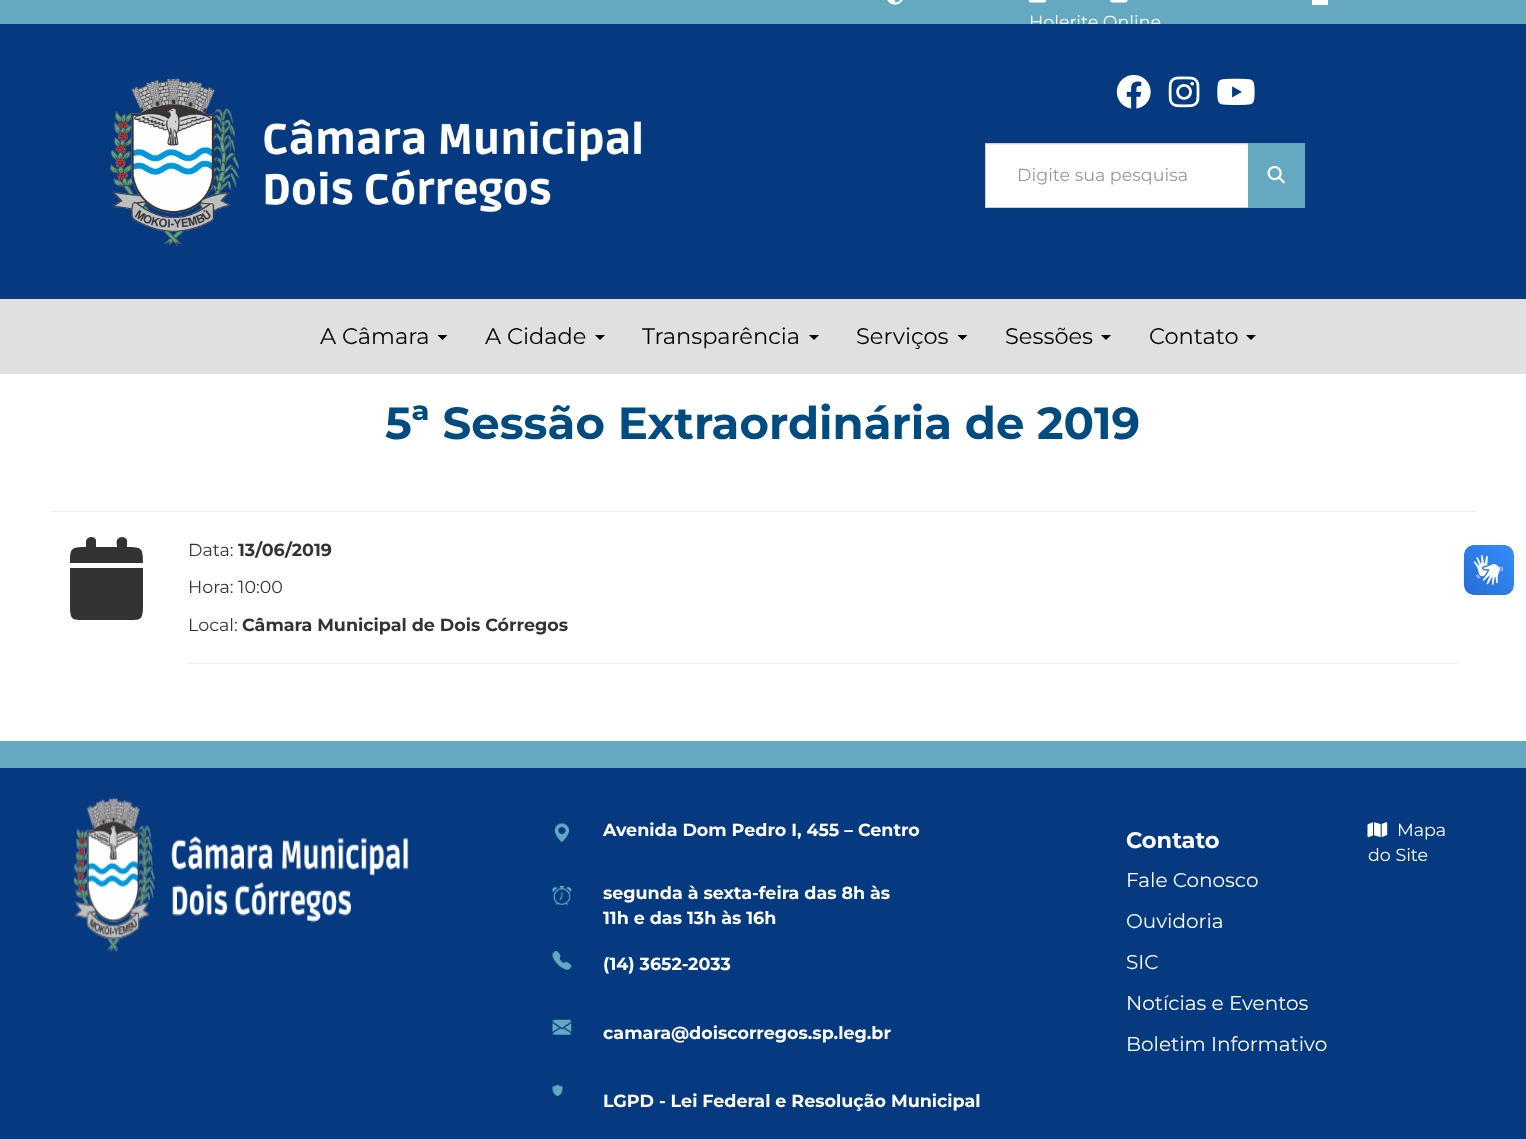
<!DOCTYPE html>
<meta charset="utf-8">
<style>body { margin: 0 } canvas { display: block }</style>
<canvas id="canvas" width="1526" height="1139"></canvas>
<script type="module">
  const canvas = document.getElementById("canvas");
  const g = canvas.getContext("2d");
  g.miterLimit = 4;
  g.fontKerning = "normal";
  function drawText(s, x, y, [font, color]) {
    g.font = font;
    g.fillStyle = color;
    g.fillText(s, x, y);
  }
  function fillBox(x, y, w, h, color) {
    g.fillStyle = color;
    g.fillRect(x, y, w, h);
  }
  async function drawPicture(src, x, y, w, h) {
    const img = new Image();
    img.src = src;
    await img.decode();
    g.drawImage(img, x, y, w, h);
  }

  const s1 = ["17.5px Montserrat", "#FFFFFF"];
  const s2 = ["17.5px Montserrat", "#999999"];
  const s3 = ["22.5px Montserrat", "#000000"];
  const s4 = ["bold 45px Montserrat", "#004B80"];
  const s5 = ["17.5px Montserrat", "#333333"];
  const s6 = ["bold 17.5px Montserrat", "#333333"];
  const s7 = ["bold 17.5px Montserrat", "#FFFFFF"];
  const s8 = ["bold 22.5px Montserrat", "#FFFFFF"];
  const s9 = ["20px Montserrat", "#FFFFFF"];

  fillBox(0, 0, 1526, 1139, "#FFFFFF");
  fillBox(0, 0, 1526, 24, "#64A9BF");
  await drawPicture("pic1.png", 887, 0, 16, 5);
  fillBox(1312, 0, 16, 5, "#FFFFFF");
  await drawPicture("pic2.png", 1028, 0, 19, 3);
  await drawPicture("pic3.png", 1110, 0, 18, 3);
  drawText("Holerite Online", 1029, 28, s1);
  fillBox(0, 24, 1526, 275, "#053A80");
  await drawPicture("pic4.png", 110, 78, 531, 169);
  await drawPicture("pic5.png", 1116, 74, 35, 35);
  await drawPicture("pic6.png", 1168, 76, 32, 32);
  await drawPicture("pic7.png", 1217, 78, 38, 27);
  fillBox(986, 145, 262, 62, "#FFFFFF");
  fillBox(986, 144, 262, 1, "#ECECEC");
  g.strokeStyle = "#CCCCCC";
  g.strokeRect(985.5, 143.5, 312, 64);
  drawText("Digite sua pesquisa", 1017, 181, s2);
  fillBox(1248, 143, 57, 65, "#64A9BF");
  await drawPicture("pic8.png", 1267, 165, 18, 19);
  fillBox(0, 299, 1526, 75, "#E0E0E0");
  drawText("A Câmara", 320, 344, s3);
  g.beginPath();
  g.moveTo(437.5, 335);
  g.lineTo(447.5, 335);
  g.lineTo(442.5, 340);
  g.closePath();
  g.fill();
  drawText("A Cidade", 485, 344, s3);
  g.beginPath();
  g.moveTo(595, 335);
  g.lineTo(605, 335);
  g.lineTo(600, 340);
  g.closePath();
  g.fill();
  drawText("Transparência", 642, 344, s3);
  g.beginPath();
  g.moveTo(809, 335);
  g.lineTo(819, 335);
  g.lineTo(814, 340);
  g.closePath();
  g.fill();
  drawText("Serviços", 856, 344, s3);
  g.beginPath();
  g.moveTo(957.5, 335);
  g.lineTo(967.5, 335);
  g.lineTo(962.5, 340);
  g.closePath();
  g.fill();
  drawText("Sessões", 1005, 344, s3);
  g.beginPath();
  g.moveTo(1101, 335);
  g.lineTo(1111, 335);
  g.lineTo(1106, 340);
  g.closePath();
  g.fill();
  drawText("Contato", 1149, 344, s3);
  g.beginPath();
  g.moveTo(1246, 335);
  g.lineTo(1256, 335);
  g.lineTo(1251, 340);
  g.closePath();
  g.fill();
  drawText("5ª Sessão Extraordinária de 2019", 385, 439, s4);
  fillBox(51, 511, 1425, 1, "#EEEEEE");
  g.fillStyle = "#333333";
  g.beginPath();
  g.moveTo(86, 542);
  g.lineTo(86, 547);
  g.bezierCurveTo(71, 547, 70, 548, 70, 563);
  g.lineTo(143, 563);
  g.bezierCurveTo(143, 548, 142, 547, 127, 547);
  g.lineTo(127, 540);
  g.bezierCurveTo(125, 536, 119, 536, 117, 540);
  g.bezierCurveTo(116, 542, 117, 545, 117, 547);
  g.lineTo(96, 547);
  g.lineTo(96, 540);
  g.bezierCurveTo(94, 535, 86, 537, 86, 542);
  g.closePath();
  g.moveTo(143, 568);
  g.lineTo(70, 568);
  g.lineTo(70, 605);
  g.bezierCurveTo(70, 621, 72, 620, 87, 620);
  g.lineTo(126, 620);
  g.bezierCurveTo(141, 620, 143, 621, 143, 605);
  g.closePath();
  g.fill();
  drawText("Data:", 188, 556, s5);
  drawText("13/06/2019", 238, 556, s6);
  drawText("Hora: 10:00", 188, 593, s5);
  drawText("Local:", 188, 631, s5);
  drawText("Câmara Municipal de Dois Córregos", 242, 631, s6);
  fillBox(189, 663, 1269, 1, "#EEEEEE");
  await drawPicture("pic9.png", 1463, 545, 51, 50);
  await drawPicture("pic10.png", 1464, 545, 50, 50);
  fillBox(0, 768, 1526, 371, "#053A80");
  fillBox(0, 741, 1526, 27, "#64A9BF");
  await drawPicture("pic11.png", 73, 798, 336, 154);
  await drawPicture("pic12.png", 554, 823, 16, 20);
  drawText("Avenida Dom Pedro I, 455 – Centro", 603, 836, s7);
  await drawPicture("pic13.png", 552, 886, 20, 19);
  drawText("segunda à sexta-feira das 8h às", 603, 899, s7);
  drawText("11h e das 13h às 16h", 603, 924, s7);
  await drawPicture("pic14.png", 552, 951, 20, 19);
  drawText("(14) 3652-2033", 603, 970, s7);
  await drawPicture("pic15.png", 552, 1019, 20, 16);
  drawText("camara@doiscorregos.sp.leg.br", 603, 1039, s7);
  await drawPicture("pic16.png", 552, 1084, 11, 12);
  drawText("LGPD - Lei Federal e Resolução Municipal", 603, 1107, s7);
  drawText("Contato", 1126, 848, s8);
  drawText("Fale Conosco", 1126, 887, s9);
  drawText("Ouvidoria", 1126, 928, s9);
  drawText("SIC", 1126, 969, s9);
  drawText("Notícias e Eventos", 1126, 1010, s9);
  drawText("Boletim Informativo", 1126, 1051, s9);
  await drawPicture("pic17.png", 1367, 822, 21, 16);
  drawText("Mapa", 1397, 836, s1);
  drawText("do Site", 1368, 861, s1);
</script>
